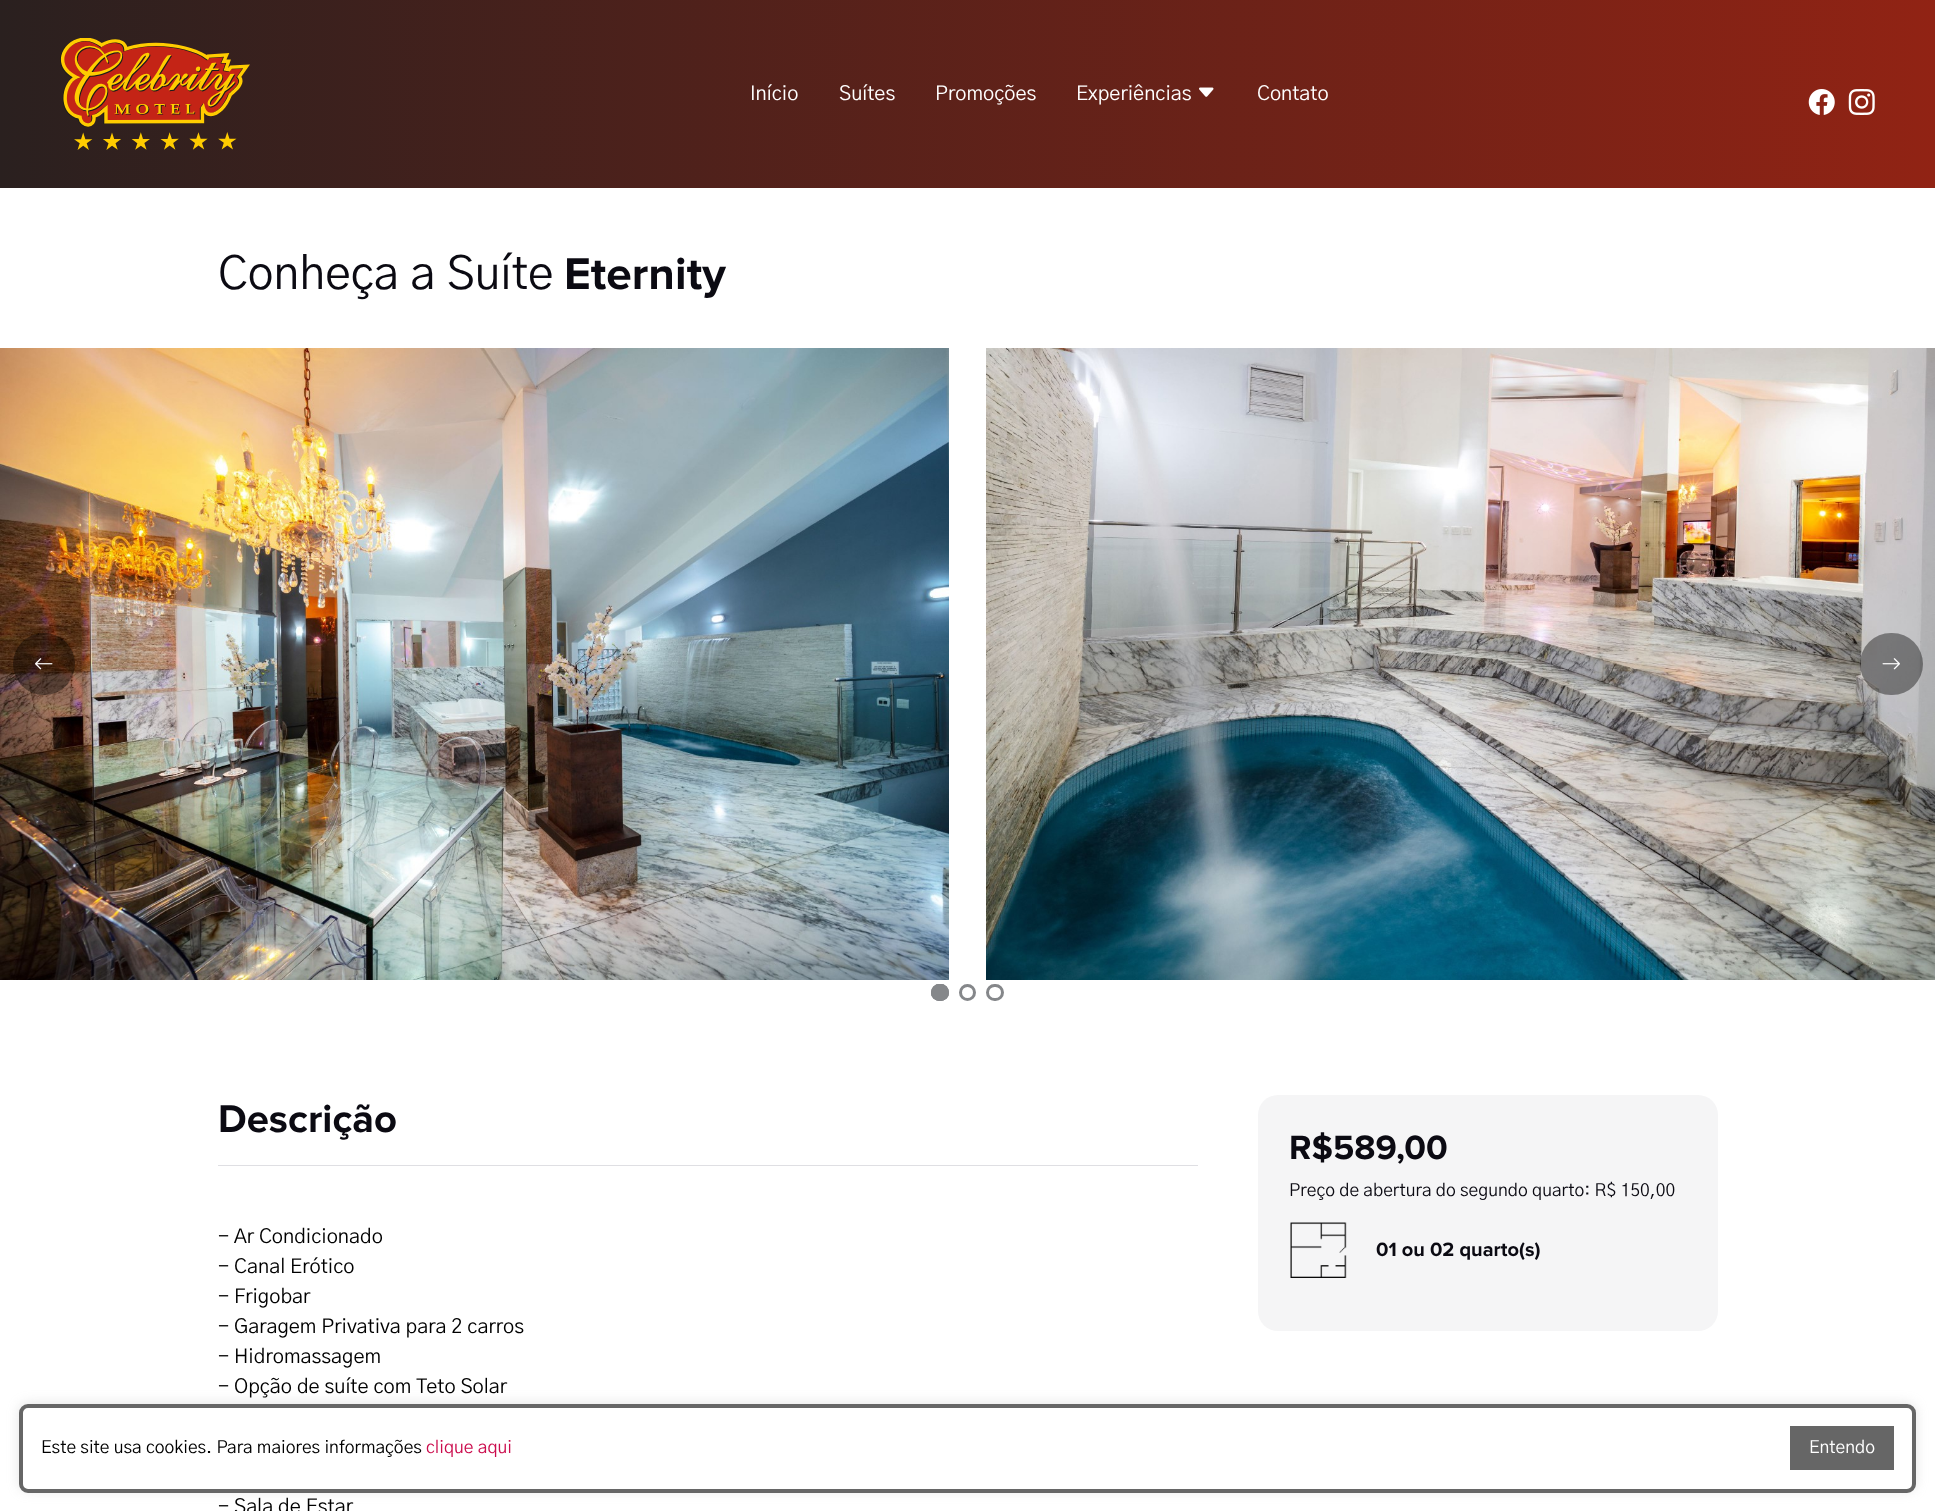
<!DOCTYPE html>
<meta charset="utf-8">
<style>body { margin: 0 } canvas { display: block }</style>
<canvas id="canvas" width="1935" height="1511"></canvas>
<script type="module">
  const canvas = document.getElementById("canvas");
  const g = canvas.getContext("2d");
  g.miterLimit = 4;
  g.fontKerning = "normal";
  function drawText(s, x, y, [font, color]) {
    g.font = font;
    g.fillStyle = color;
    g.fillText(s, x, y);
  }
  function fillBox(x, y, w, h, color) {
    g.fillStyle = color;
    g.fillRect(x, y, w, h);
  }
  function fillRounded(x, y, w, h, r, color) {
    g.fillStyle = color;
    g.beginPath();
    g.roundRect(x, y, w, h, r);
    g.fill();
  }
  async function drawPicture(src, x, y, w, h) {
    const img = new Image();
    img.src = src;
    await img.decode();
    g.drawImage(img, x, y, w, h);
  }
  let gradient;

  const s1 = ["20px 'Gothic A1'", "#FFFFFF"];
  const s2 = ["46px 'Gothic A1'", "#0B0A12"];
  const s3 = ["bold 46px Proxima Nova", "#0B0A12"];
  const s4 = ["bold 40px Proxima Nova", "#0B0A12"];
  const s5 = ["20px 'Gothic A1'", "#000000"];
  const s6 = ["bold 35px Proxima Nova", "#0B0A12"];
  const s7 = ["17.5px 'Gothic A1'", "#0B0A12"];
  const s8 = ["bold 20px Proxima Nova", "#0B0A12"];
  const s9 = ["17.5px 'Gothic A1'", "#000000"];
  const s10 = ["17.5px 'Gothic A1'", "#CB0C4D"];
  const s11 = ["17.5px 'Gothic A1'", "#FFFFFF"];

  fillBox(0, 0, 1935, 1511, "#FFFFFF");
  gradient = g.createLinearGradient(0, 94, 1935, 94);
  gradient.addColorStop(0, "#2A201F");
  gradient.addColorStop(1, "#912314");
  g.fillStyle = gradient;
  g.fillRect(0, 0, 1935, 188);
  await drawPicture("pic1.png", 60, 38, 190, 112);
  drawText("Início", 750, 100, s1);
  drawText("Suítes", 839, 100, s1);
  drawText("Promoções", 935, 100, s1);
  drawText("Experiências", 1076, 100, s1);
  await drawPicture("pic2.png", 1199, 87, 15, 10);
  drawText("Contato", 1257, 100, s1);
  await drawPicture("pic3.png", 1808, 89, 27, 26);
  await drawPicture("pic4.png", 1848, 89, 27, 26);
  drawText("Conheça a Suíte", 218, 289, s2);
  drawText("Eternity", 564, 289, s3);
  await drawPicture("pic5.png", 0, 348, 949, 632);
  await drawPicture("pic6.png", 986, 348, 949, 632);
  g.fillStyle = "rgba(0, 0, 0, 0.4)";
  g.beginPath();
  g.arc(44, 664, 31, 0, Math.PI * 2);
  g.fill();
  await drawPicture("pic7.png", 35, 658, 18, 12);
  fillRounded(1860, 633, 63, 62, 31, "rgba(0, 0, 0, 0.4)");
  await drawPicture("pic8.png", 1882, 658, 18, 12);
  g.beginPath();
  g.roundRect(932.5, 985.5, 15, 14, 7);
  g.strokeStyle = "#85878A";
  g.lineWidth = 3;
  g.stroke();
  g.fillStyle = "#85878A";
  g.filter = "blur(0.5px)";
  g.beginPath();
  g.roundRect(931, 984, 18, 17, 8.5);
  g.fill();
  g.filter = "none";
  fillRounded(931, 984, 18, 17, 8.5, "#85878A");
  g.beginPath();
  g.arc(967.5, 992.5, 7, 0, Math.PI * 2);
  g.stroke();
  g.beginPath();
  g.roundRect(987.5, 985.5, 15, 14, 7);
  g.stroke();
  fillBox(218, 1165, 980, 1, "#DFDFE3");
  drawText("Descrição", 218, 1132, s4);
  drawText("- Ar Condicionado", 218, 1243, s5);
  drawText("- Canal Erótico", 218, 1273, s5);
  drawText("- Frigobar", 218, 1303, s5);
  drawText("- Garagem Privativa para 2 carros", 218, 1333, s5);
  drawText("- Hidromassagem", 218, 1363, s5);
  drawText("- Opção de suíte com Teto Solar", 218, 1393, s5);
  drawText("- Sala de Estar", 218, 1513, s5);
  fillRounded(1258, 1095, 460, 236, 20, "#F5F5F6");
  drawText("R$589,00", 1289, 1159, s6);
  drawText("Preço de abertura do segundo quarto: R$ 150,00", 1289, 1196, s7);
  await drawPicture("pic9.png", 1290, 1222, 57, 56);
  drawText("01 ou 02 quarto(s)", 1376, 1256, s8);
  g.fillStyle = "rgba(170, 170, 170, 0.3)";
  g.filter = "blur(6px)";
  g.beginPath();
  g.roundRect(19, 1403, 1897, 88, 9);
  g.fill();
  g.filter = "none";
  g.fillStyle = "#FFFFFF";
  g.beginPath();
  g.roundRect(21, 1406, 1893, 85, 7);
  g.fill();
  g.strokeStyle = "#666666";
  g.lineWidth = 4;
  g.stroke();
  drawText("Este site usa cookies. Para maiores informações", 41, 1453, s9);
  drawText("clique aqui", 426, 1453, s10);
  fillBox(1790, 1426, 104, 44, "#666666");
  drawText("Entendo", 1809, 1453, s11);
</script>
